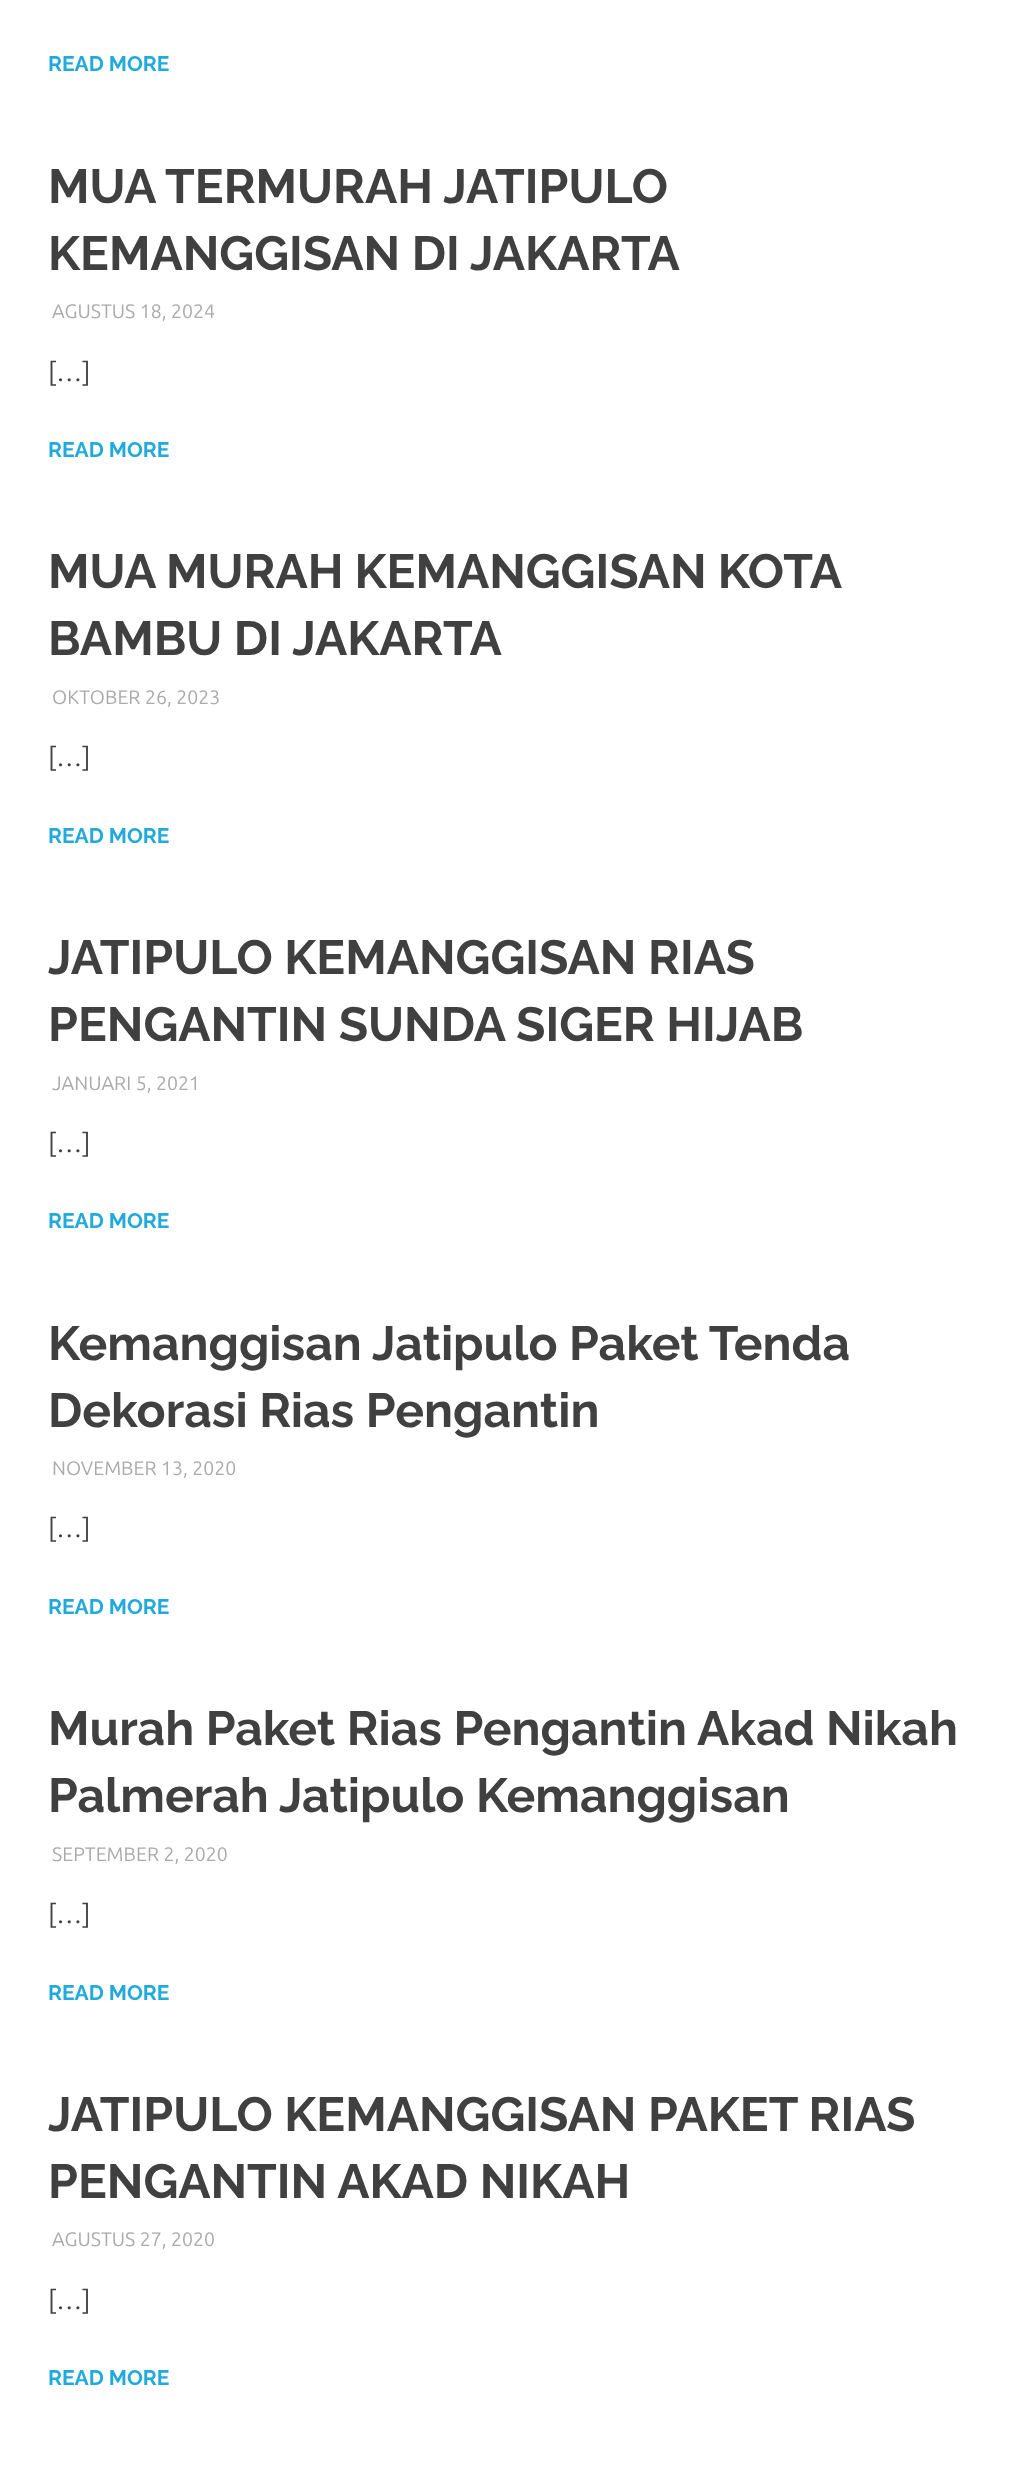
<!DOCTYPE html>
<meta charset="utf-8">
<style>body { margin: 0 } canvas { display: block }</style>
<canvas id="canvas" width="1023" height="2467"></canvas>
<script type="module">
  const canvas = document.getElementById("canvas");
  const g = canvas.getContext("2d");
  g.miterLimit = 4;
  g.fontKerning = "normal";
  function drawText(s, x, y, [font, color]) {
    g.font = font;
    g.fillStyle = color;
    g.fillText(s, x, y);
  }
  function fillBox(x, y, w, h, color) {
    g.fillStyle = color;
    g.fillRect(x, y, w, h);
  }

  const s1 = ["bold 21px Raleway", "#22AADD"];
  const s2 = ["bold 48px Raleway", "#404040"];
  const s3 = ["19.5px Ubuntu", "#AAAAAA"];
  const s4 = ["26px Ubuntu", "#404040"];

  fillBox(0, 0, 1023, 2467, "#FFFFFF");
  drawText("READ MORE", 48, 71, s1);
  drawText("MUA TERMURAH JATIPULO", 48, 203, s2);
  drawText("KEMANGGISAN DI JAKARTA", 48, 270, s2);
  drawText("AGUSTUS 18, 2024", 52, 318, s3);
  drawText("[…]", 48, 381, s4);
  drawText("READ MORE", 48, 457, s1);
  g.wordSpacing = "-0.5px";
  drawText("MUA MURAH KEMANGGISAN KOTA", 48, 588, s2);
  g.wordSpacing = "0px";
  drawText("BAMBU DI JAKARTA", 48, 655, s2);
  drawText("OKTOBER 26, 2023", 52, 704, s3);
  drawText("[…]", 48, 766, s4);
  drawText("READ MORE", 48, 843, s1);
  drawText("JATIPULO KEMANGGISAN RIAS", 48, 974, s2);
  drawText("PENGANTIN SUNDA SIGER HIJAB", 48, 1041, s2);
  drawText("JANUARI 5, 2021", 52, 1090, s3);
  drawText("[…]", 48, 1152, s4);
  drawText("READ MORE", 48, 1228, s1);
  drawText("Kemanggisan Jatipulo Paket Tenda", 48, 1360, s2);
  drawText("Dekorasi Rias Pengantin", 48, 1427, s2);
  drawText("NOVEMBER 13, 2020", 52, 1475, s3);
  drawText("[…]", 48, 1537, s4);
  drawText("READ MORE", 48, 1614, s1);
  drawText("Murah Paket Rias Pengantin Akad Nikah", 48, 1745, s2);
  drawText("Palmerah Jatipulo Kemanggisan", 48, 1812, s2);
  drawText("SEPTEMBER 2, 2020", 52, 1861, s3);
  drawText("[…]", 48, 1923, s4);
  drawText("READ MORE", 48, 2000, s1);
  drawText("JATIPULO KEMANGGISAN PAKET RIAS", 48, 2131, s2);
  drawText("PENGANTIN AKAD NIKAH", 48, 2198, s2);
  drawText("AGUSTUS 27, 2020", 52, 2246, s3);
  drawText("[…]", 48, 2309, s4);
  drawText("READ MORE", 48, 2385, s1);
</script>
